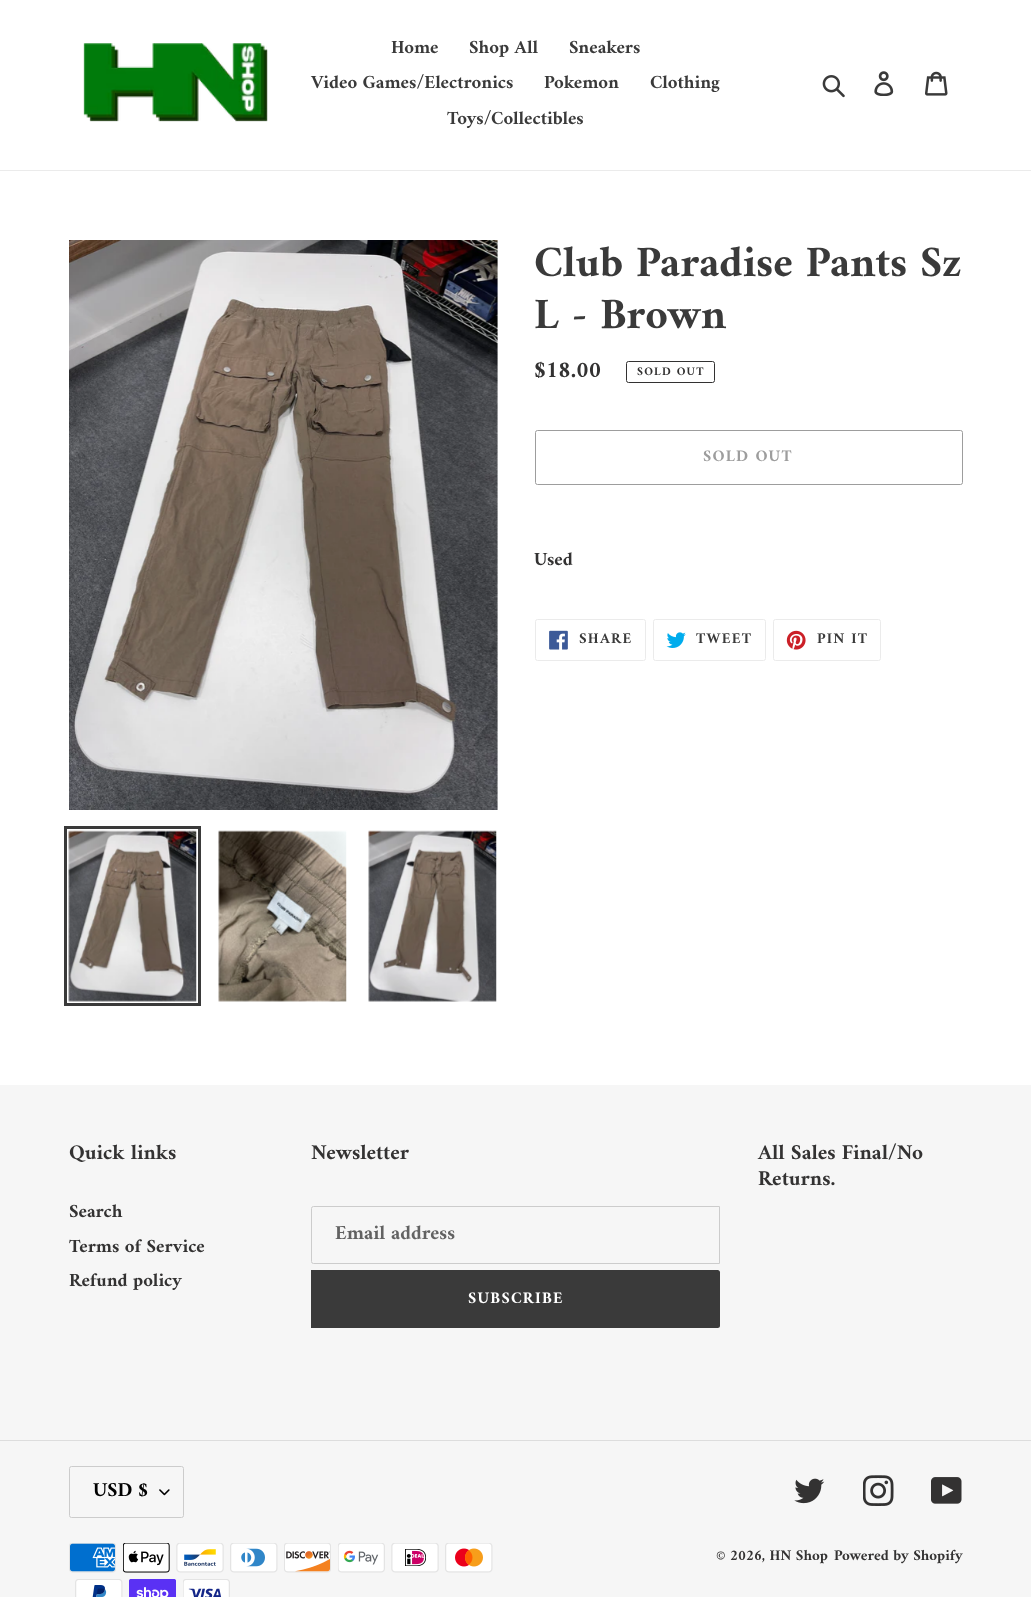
<!DOCTYPE html>
<meta charset="utf-8">
<style>body { margin: 0 } canvas { display: block }</style>
<canvas id="canvas" width="1031" height="1597"></canvas>
<script type="module">
  const canvas = document.getElementById("canvas");
  const g = canvas.getContext("2d");
  g.miterLimit = 4;
  g.fontKerning = "normal";
  function drawText(s, x, y, [font, color]) {
    g.font = font;
    g.fillStyle = color;
    g.fillText(s, x, y);
  }
  function fillBox(x, y, w, h, color) {
    g.fillStyle = color;
    g.fillRect(x, y, w, h);
  }
  async function drawPicture(src, x, y, w, h) {
    const img = new Image();
    img.src = src;
    await img.decode();
    g.drawImage(img, x, y, w, h);
  }

  const s1 = ["bold 18.75px Amiri", "#3A3A3A"];
  const s2 = ["bold 43.75px Amiri", "#3A3A3A"];
  const s3 = ["bold 23.5px Amiri", "#333232"];
  const s4 = ["bold 11.75px Amiri", "#333232"];
  const s5 = ["bold 16.25px Amiri", "#9D9D9D"];
  const s6 = ["bold 18.75px Amiri", "#333232"];
  const s7 = ["bold 15px Amiri", "#3A3A3A"];
  const s8 = ["bold 21.25px Amiri", "#333232"];
  const s9 = ["bold 20px Amiri", "#626262"];
  const s10 = ["bold 16.25px Amiri", "#FFFFFF"];
  const s11 = ["bold 20px Amiri", "#000000"];
  const s12 = ["bold 15px Amiri", "#333232"];

  fillBox(0, 0, 1031, 1597, "#FFFFFF");
  fillBox(0, 170, 1031, 1, "#EBEBEB");
  await drawPicture("pic1.png", 83, 43, 185, 79);
  drawText("Home", 391, 53, s1);
  drawText("Shop All", 469, 53, s1);
  drawText("Sneakers", 569, 53, s1);
  drawText("Video Games/Electronics", 311, 88, s1);
  drawText("Pokemon", 544, 88, s1);
  drawText("Clothing", 650, 88, s1);
  drawText("Toys/Collectibles", 447, 124, s1);
  await drawPicture("pic2.png", 822, 75, 23, 23);
  await drawPicture("pic3.png", 874, 71, 20, 25);
  await drawPicture("pic4.png", 925, 71, 23, 25);
  await drawPicture("pic5.png", 69, 240, 429, 570);
  g.strokeStyle = "#3A3A3A";
  g.lineWidth = 3;
  g.strokeRect(65.5, 827.5, 134, 177);
  await drawPicture("pic6.png", 68, 830, 129, 172);
  await drawPicture("pic7.png", 218, 830, 129, 172);
  await drawPicture("pic8.png", 368, 830, 129, 172);
  drawText("Club Paradise Pants Sz", 534, 276, s2);
  drawText("L - Brown", 534, 328, s2);
  drawText("$18.00", 534, 377, s3);
  g.beginPath();
  g.roundRect(626.5, 361.5, 88, 21, 2);
  g.strokeStyle = "#333232";
  g.lineWidth = 1;
  g.stroke();
  g.letterSpacing = "1.25px";
  drawText("SOLD OUT", 637, 375, s4);
  g.beginPath();
  g.roundRect(535.5, 430.5, 427, 54, 2);
  g.strokeStyle = "#9D9D9D";
  g.stroke();
  drawText("SOLD OUT", 703, 461, s5);
  g.letterSpacing = "0px";
  drawText("Used", 534, 565, s6);
  g.beginPath();
  g.roundRect(535.5, 619.5, 110, 41, 2);
  g.strokeStyle = "#EBEBEB";
  g.stroke();
  await drawPicture("pic9.png", 549, 630, 19, 20);
  g.letterSpacing = "1.25px";
  drawText("SHARE", 579, 643, s7);
  g.beginPath();
  g.roundRect(653.5, 619.5, 112, 41, 2);
  g.stroke();
  await drawPicture("pic10.png", 666, 632, 20, 16);
  drawText("TWEET", 696, 643, s7);
  g.beginPath();
  g.roundRect(773.5, 619.5, 107, 41, 2);
  g.stroke();
  await drawPicture("pic11.png", 786, 630, 20, 20);
  drawText("PIN IT", 817, 643, s7);
  fillBox(0, 1085, 1031, 512, "#F6F6F6");
  g.letterSpacing = "0px";
  drawText("Quick links", 69, 1159, s8);
  drawText("Search", 69, 1217, s6);
  drawText("Terms of Service", 69, 1252, s6);
  drawText("Refund policy", 69, 1286, s6);
  drawText("Newsletter", 311, 1159, s8);
  g.beginPath();
  g.roundRect(311.5, 1206.5, 408, 57, [2, 0, 0, 2]);
  g.strokeStyle = "#CCCCCC";
  g.stroke();
  drawText("Email address", 335, 1239, s9);
  g.fillStyle = "#3A3A3A";
  g.beginPath();
  g.roundRect(311, 1270, 409, 58, [0, 2.5, 2.5, 0]);
  g.fill();
  g.letterSpacing = "1.25px";
  drawText("SUBSCRIBE", 468, 1303, s10);
  g.letterSpacing = "0px";
  drawText("All Sales Final/No", 758, 1159, s8);
  drawText("Returns.", 758, 1185, s8);
  fillBox(0, 1440, 1031, 1, "#DDDDDD");
  await drawPicture("pic12.png", 159, 1489, 11, 7);
  g.beginPath();
  g.roundRect(69.5, 1466.5, 114, 51, 2);
  g.stroke();
  drawText("USD $", 93, 1496, s11);
  await drawPicture("pic13.png", 794, 1478, 31, 26);
  await drawPicture("pic14.png", 863, 1475, 31, 31);
  await drawPicture("pic15.png", 931, 1477, 31, 27);
  await drawPicture("pic16.png", 69, 1543, 47, 30);
  await drawPicture("pic17.png", 123, 1543, 47, 30);
  await drawPicture("pic18.png", 176, 1543, 48, 30);
  await drawPicture("pic19.png", 230, 1543, 48, 30);
  await drawPicture("pic20.png", 284, 1543, 47, 30);
  await drawPicture("pic21.png", 338, 1543, 47, 30);
  await drawPicture("pic22.png", 391, 1543, 48, 30);
  await drawPicture("pic23.png", 445, 1543, 48, 30);
  await drawPicture("pic24.png", 75, 1579, 48, 18);
  await drawPicture("pic25.png", 129, 1579, 47, 18);
  await drawPicture("pic26.png", 183, 1579, 47, 18);
  drawText("© 2026, HN Shop", 716, 1560, s12);
  drawText("Powered by Shopify", 834, 1560, s12);
</script>
